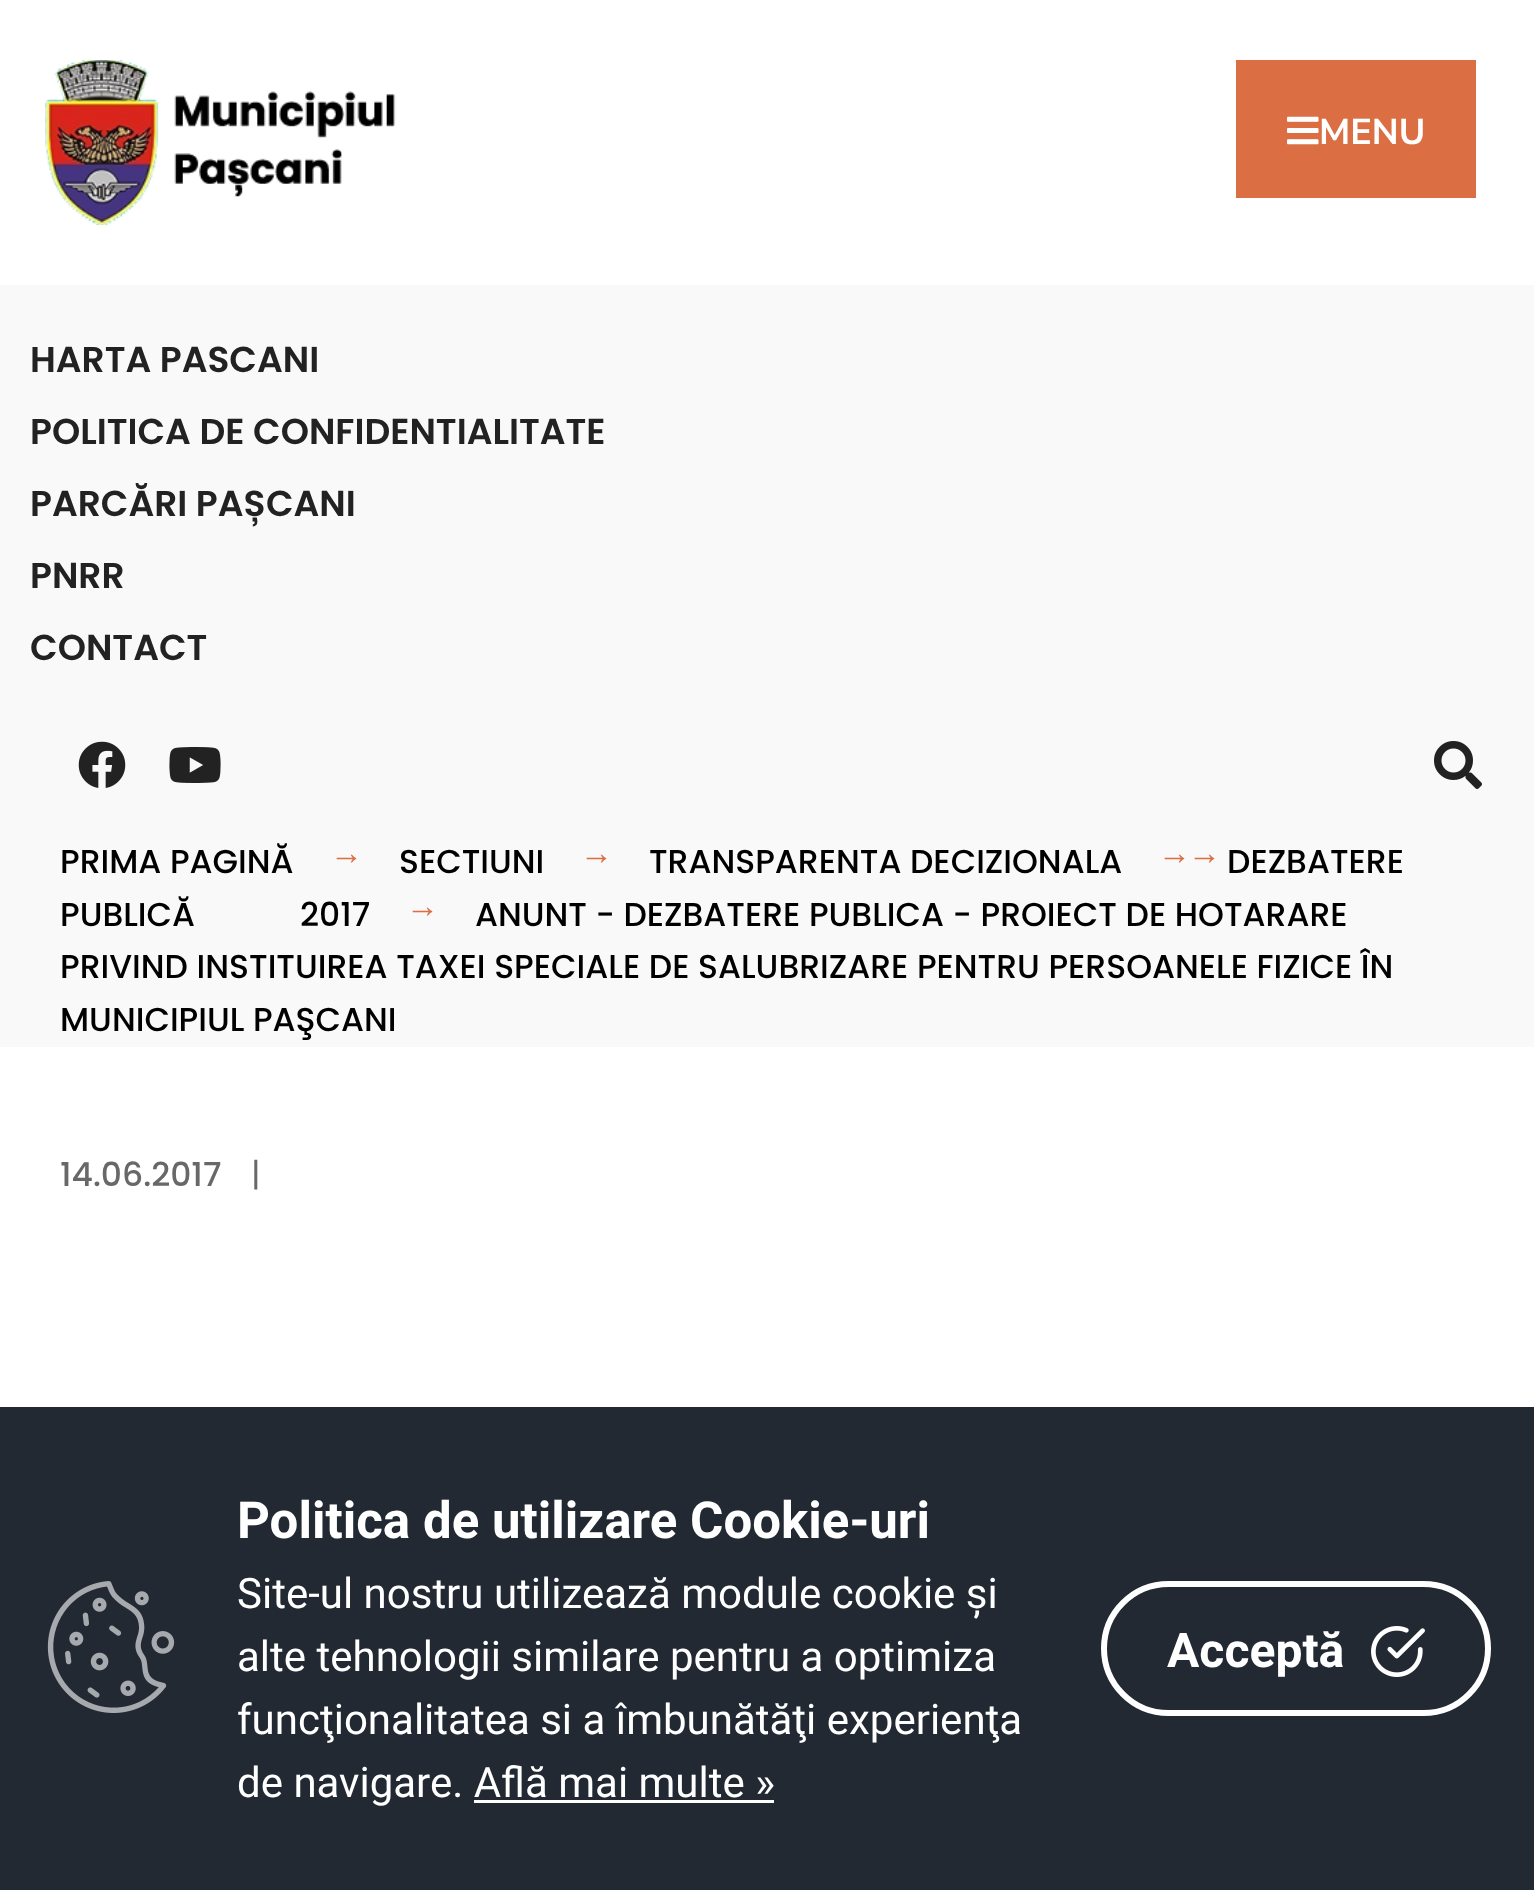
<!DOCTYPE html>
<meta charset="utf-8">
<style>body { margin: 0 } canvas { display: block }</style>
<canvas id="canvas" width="1534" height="1890"></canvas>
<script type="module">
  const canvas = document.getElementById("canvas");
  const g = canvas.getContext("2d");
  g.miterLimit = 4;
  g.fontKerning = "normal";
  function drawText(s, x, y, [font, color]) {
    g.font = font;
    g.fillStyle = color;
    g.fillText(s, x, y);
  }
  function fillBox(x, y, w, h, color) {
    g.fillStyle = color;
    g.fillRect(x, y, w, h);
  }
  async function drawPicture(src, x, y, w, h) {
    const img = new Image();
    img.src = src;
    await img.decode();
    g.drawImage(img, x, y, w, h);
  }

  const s1 = ["bold 36px Nunito Sans", "#FFFFFF"];
  const s2 = ["600 36px Poppins", "#222222"];
  const s3 = ["500 33px Poppins", "#000000"];
  const s4 = ["33px Liberation Serif", "#DB6E43"];
  const s5 = ["500 33px Poppins", "#686868"];
  const s6 = ["33px Poppins", "#686868"];
  const s7 = ["bold 51px Roboto", "#FFFFFF"];
  const s8 = ["42px Roboto", "#FFFFFF"];
  const s9 = ["bold 48px Roboto", "#FFFFFF"];

  fillBox(0, 0, 1534, 1890, "#FFFFFF");
  await drawPicture("pic1.png", 45, 60, 351, 165);
  fillBox(1236, 60, 240, 138, "#DB6E43");
  await drawPicture("pic2.png", 1287, 116, 32, 29);
  drawText("MENU", 1319, 144, s1);
  fillBox(0, 285, 1534, 762, "#F9F9F9");
  drawText("HARTA PASCANI", 30, 372, s2);
  drawText("POLITICA DE CONFIDENTIALITATE", 30, 444, s2);
  drawText("PARCĂRI PAȘCANI", 30, 516, s2);
  drawText("PNRR", 30, 588, s2);
  drawText("CONTACT", 30, 660, s2);
  await drawPicture("pic3.png", 78, 741, 48, 47);
  await drawPicture("pic4.png", 169, 747, 52, 36);
  await drawPicture("pic5.png", 1434, 741, 48, 48);
  drawText("PRIMA PAGINĂ", 60, 873, s3);
  drawText("→", 330, 864, s4);
  drawText("SECTIUNI", 399, 873, s3);
  drawText("→", 580, 864, s4);
  drawText("TRANSPARENTA DECIZIONALA", 649, 873, s3);
  drawText("→", 1158, 864, s4);
  drawText("→", 1188, 864, s4);
  drawText("DEZBATERE", 1227, 873, s3);
  drawText("PUBLICĂ", 60, 926, s3);
  drawText("2017", 300, 926, s3);
  drawText("→", 406, 917, s4);
  drawText("ANUNT - DEZBATERE PUBLICA - PROIECT DE HOTARARE", 475, 926, s3);
  drawText("PRIVIND INSTITUIREA TAXEI SPECIALE DE SALUBRIZARE PENTRU PERSOANELE FIZICE ÎN", 60, 978, s3);
  drawText("MUNICIPIUL PAŞCANI", 60, 1031, s3);
  drawText("14.06.2017", 60, 1186, s5);
  drawText("|", 251, 1186, s6);
  fillBox(0, 1407, 1534, 483, "#222933");
  await drawPicture("pic6.png", 47, 1581, 128, 132);
  drawText("Politica de utilizare Cookie-uri", 237, 1538, s7);
  drawText("Site-ul nostru utilizează module cookie și", 237, 1608, s8);
  drawText("alte tehnologii similare pentru a optimiza", 237, 1671, s8);
  drawText("funcţionalitatea si a îmbunătăţi experienţa", 237, 1734, s8);
  drawText("de navigare. Află mai multe »", 237, 1797, s8);
  fillBox(474, 1800, 300, 3, "#FFFFFF");
  g.beginPath();
  g.roundRect(1104, 1584, 384, 129, 64.5);
  g.strokeStyle = "#FFFFFF";
  g.lineWidth = 6;
  g.stroke();
  drawText("Acceptă", 1167, 1667, s9);
  await drawPicture("pic7.png", 1371, 1626, 54, 51);
</script>
